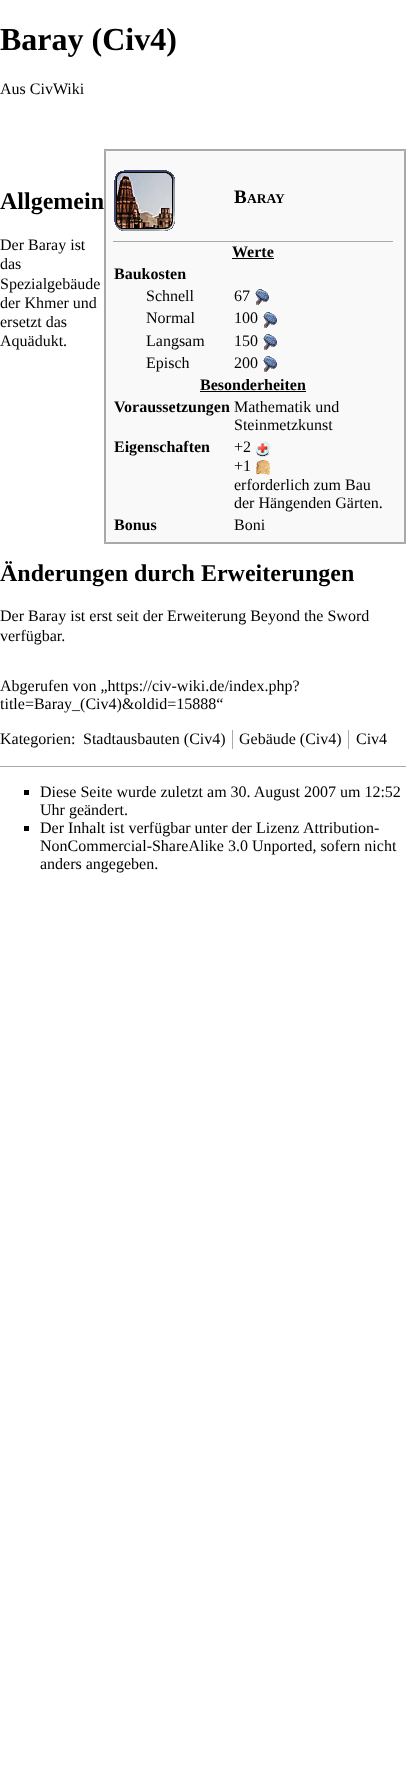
<!DOCTYPE html>
<meta charset="utf-8">
<style>body { margin: 0 } canvas { display: block }</style>
<canvas id="canvas" width="406" height="1781"></canvas>
<script type="module">
  const canvas = document.getElementById("canvas");
  const g = canvas.getContext("2d");
  g.miterLimit = 4;
  g.fontKerning = "normal";
  function drawText(s, x, y, [font, color]) {
    g.font = font;
    g.fillStyle = color;
    g.fillText(s, x, y);
  }
  function fillBox(x, y, w, h, color) {
    g.fillStyle = color;
    g.fillRect(x, y, w, h);
  }
  async function drawPicture(src, x, y, w, h) {
    const img = new Image();
    img.src = src;
    await img.decode();
    g.drawImage(img, x, y, w, h);
  }

  const s1 = ["bold 32px Liberation Serif", "#000000"];
  const s2 = ["16px Liberation Serif", "#000000"];
  const s3 = ["bold 24px Liberation Serif", "#000000"];
  const s4 = ["bold 19px Liberation Serif", "#000000"];
  const s5 = ["bold 13.5px Liberation Serif", "#000000"];
  const s6 = ["bold 16px Liberation Serif", "#000000"];

  fillBox(0, 0, 406, 1781, "#FFFFFF");
  drawText("Baray (Civ4)", 0, 50, s1);
  drawText("Aus CivWiki", 0, 94, s2);
  drawText("Allgemein", 0, 209, s3);
  g.strokeStyle = "#A8A8A8";
  g.strokeRect(104.5, 149.5, 301, 394);
  g.fillStyle = "#F9F9F9";
  g.beginPath();
  g.rect(105.5, 150.5, 299, 392);
  g.fill();
  g.strokeStyle = "#AAAAAA";
  g.stroke();
  await drawPicture("pic1.png", 114, 170, 61, 61);
  drawText("B", 234, 203, s4);
  drawText("ARAY", 247, 203, s5);
  fillBox(113, 241, 280, 1, "#A8A8A8");
  drawText("Werte", 232, 257, s6);
  fillBox(232, 258, 42, 1, "#000000");
  drawText("Baukosten", 114, 279, s6);
  drawText("Schnell", 146, 301, s2);
  drawText("67", 234, 301, s2);
  await drawPicture("pic2.png", 255, 289, 14, 16);
  drawText("Normal", 146, 323, s2);
  drawText("100", 234, 323, s2);
  await drawPicture("pic2.png", 263, 312, 14, 16);
  drawText("Langsam", 146, 346, s2);
  drawText("150", 234, 346, s2);
  await drawPicture("pic2.png", 263, 334, 14, 16);
  drawText("Episch", 146, 368, s2);
  drawText("200", 234, 368, s2);
  await drawPicture("pic2.png", 263, 356, 14, 16);
  drawText("Besonderheiten", 200, 390, s6);
  fillBox(200, 391, 106, 1, "#000000");
  drawText("Voraussetzungen", 114, 412, s6);
  drawText("Mathematik und", 234, 412, s2);
  drawText("Steinmetzkunst", 234, 430, s2);
  drawText("Eigenschaften", 114, 452, s6);
  drawText("+2", 234, 452, s2);
  await drawPicture("pic3.png", 255, 441, 16, 16);
  drawText("+1", 234, 471, s2);
  await drawPicture("pic4.png", 256, 460, 14, 15);
  drawText("erforderlich zum Bau", 234, 490, s2);
  drawText("der Hängenden Gärten.", 234, 508, s2);
  drawText("Bonus", 114, 530, s6);
  drawText("Boni", 234, 530, s2);
  drawText("Der Baray ist", 0, 250, s2);
  drawText("das", 0, 269, s2);
  drawText("Spezialgebäude", 0, 289, s2);
  drawText("der Khmer und", 0, 308, s2);
  drawText("ersetzt das", 0, 327, s2);
  drawText("Aquädukt.", 0, 346, s2);
  drawText("Änderungen durch Erweiterungen", 0, 581, s3);
  drawText("Der Baray ist erst seit der Erweiterung Beyond the Sword", 0, 621, s2);
  drawText("verfügbar.", 0, 641, s2);
  drawText("Abgerufen von „https://civ-wiki.de/index.php?", 0, 691, s2);
  drawText("title=Baray_(Civ4)&oldid=15888“", 0, 709, s2);
  drawText("Kategorien:", 0, 744, s2);
  drawText("Stadtausbauten (Civ4)", 83, 744, s2);
  fillBox(232, 730, 1, 19, "#AAAAAA");
  drawText("Gebäude (Civ4)", 239, 744, s2);
  fillBox(348, 730, 1, 19, "#AAAAAA");
  drawText("Civ4", 356, 744, s2);
  fillBox(0, 766, 406, 1, "#AAAAAA");
  fillBox(24, 790, 5, 5, "#000000");
  drawText("Diese Seite wurde zuletzt am 30. August 2007 um 12:52", 40, 797, s2);
  drawText("Uhr geändert.", 40, 815, s2);
  fillBox(24, 826, 5, 5, "#000000");
  drawText("Der Inhalt ist verfügbar unter der Lizenz", 40, 833, s2);
  drawText("Attribution-", 303, 833, s2);
  drawText("NonCommercial-ShareAlike 3.0 Unported, sofern nicht", 40, 851, s2);
  drawText("anders angegeben.", 40, 869, s2);
</script>
